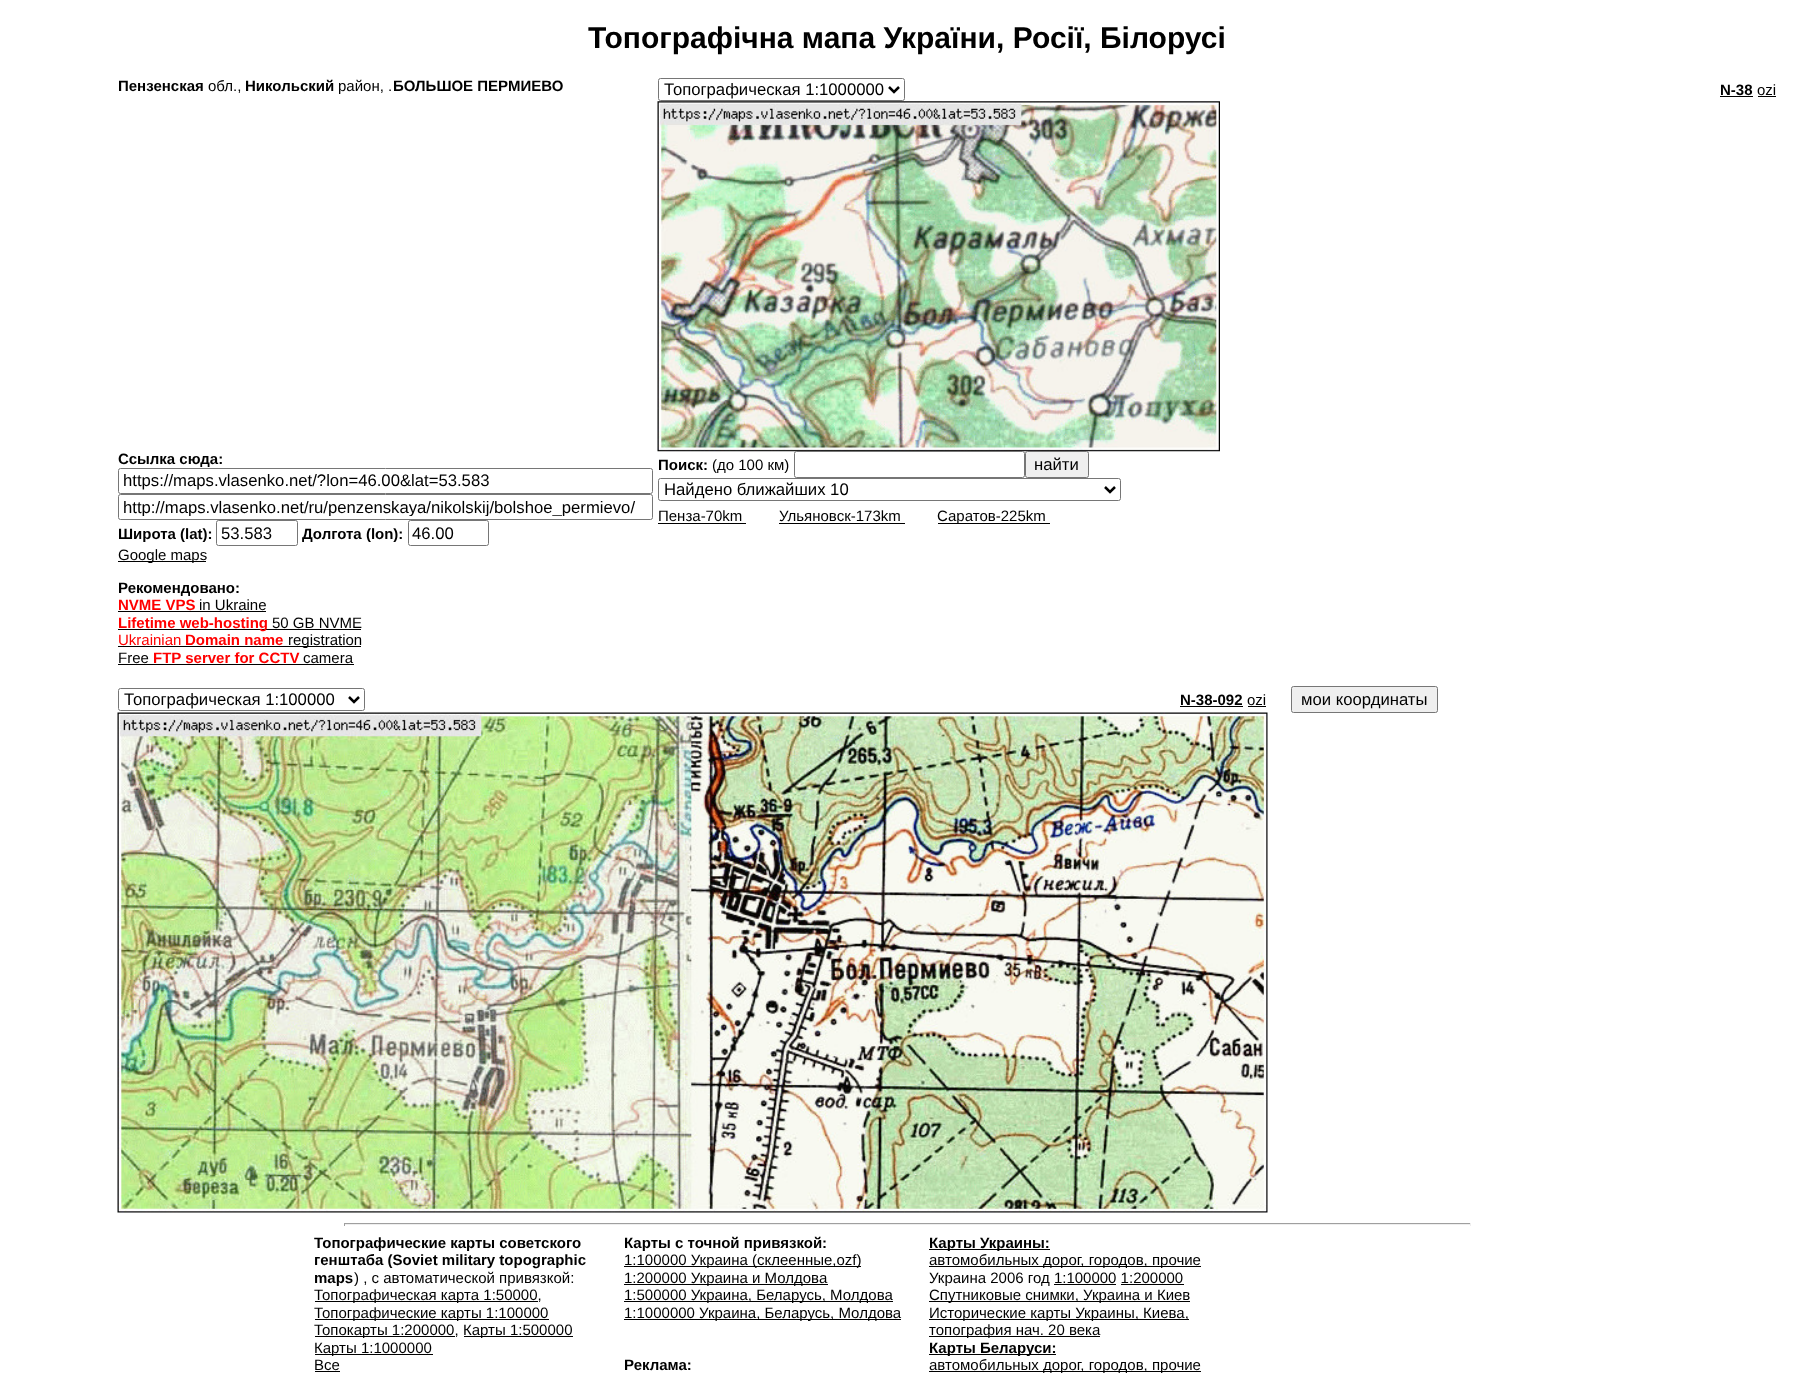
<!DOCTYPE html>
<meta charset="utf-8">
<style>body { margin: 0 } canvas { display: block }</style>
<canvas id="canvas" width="1813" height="1383"></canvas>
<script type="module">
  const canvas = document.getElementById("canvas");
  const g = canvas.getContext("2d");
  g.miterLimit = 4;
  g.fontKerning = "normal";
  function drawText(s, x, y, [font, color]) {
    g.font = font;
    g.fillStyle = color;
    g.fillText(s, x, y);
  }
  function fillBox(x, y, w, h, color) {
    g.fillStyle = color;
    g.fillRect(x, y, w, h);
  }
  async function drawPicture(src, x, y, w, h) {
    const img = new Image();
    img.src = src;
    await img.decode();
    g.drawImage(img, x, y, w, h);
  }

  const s1 = ["bold 30px Liberation Sans", "#000000"];
  const s2 = ["bold 15px Liberation Sans", "#000000"];
  const s3 = ["15px Liberation Sans", "#000000"];
  const s4 = ["16.7px Liberation Sans", "#000000"];
  const s5 = ["bold 15px Liberation Sans", "#FF0000"];
  const s6 = ["15px Liberation Sans", "#FF0000"];

  fillBox(0, 0, 1813, 1383, "#FFFFFF");
  drawText("Топографічна мапа України, Росії, Білорусі", 588, 48, s1);
  drawText("Пензенская", 118, 91, s2);
  drawText("обл.,", 208, 91, s3);
  drawText("Никольский", 245, 91, s2);
  drawText("район, .", 338, 91, s3);
  drawText("БОЛЬШОЕ ПЕРМИЕВО", 393, 91, s2);
  drawText("Ссылка сюда:", 118, 464, s2);
  g.beginPath();
  g.roundRect(118.5, 468.5, 534, 25, 2);
  g.strokeStyle = "#767676";
  g.stroke();
  drawText("https://maps.vlasenko.net/?lon=46.00&lat=53.583", 123, 486, s4);
  g.beginPath();
  g.roundRect(118.5, 494.5, 534, 25, 2);
  g.stroke();
  g.save();
  g.beginPath();
  g.rect(123, 498, 525, 18);
  g.clip();
  drawText("http://maps.vlasenko.net/ru/penzenskaya/nikolskij/bolshoe_permievo/", 123, 513, s4);
  g.restore();
  drawText("Широта (lat):", 118, 539, s2);
  g.beginPath();
  g.roundRect(216.5, 520.5, 81, 25, 2);
  g.stroke();
  drawText("53.583", 221, 539, s4);
  drawText("Долгота (lon):", 302, 539, s2);
  g.beginPath();
  g.roundRect(408.5, 520.5, 80, 25, 2);
  g.stroke();
  drawText("46.00", 412, 539, s4);
  fillBox(118, 561, 88, 1, "#000000");
  drawText("Google maps", 118, 560, s3);
  drawText("Рекомендовано:", 118, 593, s2);
  drawText("NVME VPS", 118, 610, s5);
  fillBox(118, 611, 148, 1, "#000000");
  drawText("in Ukraine", 199, 610, s3);
  fillBox(118, 629, 243, 1, "#000000");
  drawText("Lifetime web-hosting", 118, 628, s5);
  drawText("50 GB NVME", 272, 628, s3);
  drawText("Ukrainian", 118, 645, s6);
  drawText("Domain name", 185, 645, s5);
  fillBox(118, 646, 243, 1, "#000000");
  drawText("registration", 288, 645, s3);
  drawText("Free", 118, 663, s3);
  drawText("FTP server for CCTV", 153, 663, s5);
  drawText("camera", 303, 663, s3);
  fillBox(118, 664, 236, 1, "#000000");
  g.beginPath();
  g.roundRect(658.5, 78.5, 246, 22, 2);
  g.stroke();
  g.beginPath();
  g.moveTo(889, 87);
  g.lineTo(894, 92);
  g.lineTo(899, 87);
  g.strokeStyle = "#000000";
  g.lineWidth = 2.5;
  g.stroke();
  drawText("Топографическая 1:1000000", 664, 95, s4);
  drawText("N-38", 1720, 95, s2);
  fillBox(1720, 96, 33, 1, "#000000");
  drawText("ozi", 1757, 95, s3);
  fillBox(1758, 96, 18, 1, "#000000");
  await drawPicture("pic1.png", 657, 101, 563, 351);
  drawText("Поиск:", 658, 470, s2);
  drawText("(до 100 км)", 712, 470, s3);
  g.fillStyle = "#FFFFFF";
  g.beginPath();
  g.roundRect(794.5, 451.5, 230, 26, 2);
  g.fill();
  g.strokeStyle = "#767676";
  g.lineWidth = 1;
  g.stroke();
  g.fillStyle = "#EFEFEF";
  g.beginPath();
  g.roundRect(1025.5, 451.5, 63, 26, 2);
  g.fill();
  g.stroke();
  drawText("найти", 1034, 470, s4);
  g.beginPath();
  g.roundRect(658.5, 478.5, 462, 22, 2);
  g.stroke();
  g.beginPath();
  g.moveTo(1105, 487);
  g.lineTo(1110, 492);
  g.lineTo(1115, 487);
  g.strokeStyle = "#000000";
  g.lineWidth = 2.5;
  g.stroke();
  drawText("Найдено ближайших 10", 664, 495, s4);
  drawText("Пенза-70km", 658, 521, s3);
  fillBox(658, 523, 88, 1, "#000000");
  drawText("Ульяновск-173km", 779, 521, s3);
  fillBox(779, 523, 126, 1, "#000000");
  fillBox(938, 523, 112, 1, "#000000");
  drawText("Саратов-225km", 937, 521, s3);
  g.beginPath();
  g.roundRect(118.5, 688.5, 246, 22, 2);
  g.strokeStyle = "#767676";
  g.lineWidth = 1;
  g.stroke();
  g.beginPath();
  g.moveTo(349, 697);
  g.lineTo(354, 702);
  g.lineTo(359, 697);
  g.strokeStyle = "#000000";
  g.lineWidth = 2.5;
  g.stroke();
  drawText("Топографическая 1:100000", 124, 705, s4);
  drawText("N-38-092", 1180, 705, s2);
  fillBox(1180, 706, 63, 1, "#000000");
  drawText("ozi", 1247, 705, s3);
  fillBox(1248, 706, 18, 1, "#000000");
  g.fillStyle = "#EFEFEF";
  g.beginPath();
  g.roundRect(1291.5, 686.5, 146, 26, 2);
  g.fill();
  g.strokeStyle = "#767676";
  g.lineWidth = 1;
  g.stroke();
  drawText("мои координаты", 1301, 705, s4);
  await drawPicture("pic2.png", 117, 712, 1151, 501);
  fillBox(344, 1223, 1127, 1, "#9F9F9F");
  fillBox(1470, 1223, 1, 3, "#EEEEEE");
  fillBox(344, 1224, 1127, 1, "#EEEEEE");
  fillBox(344, 1223, 1, 3, "#9F9F9F");
  drawText("Топографические карты советского", 314, 1248, s2);
  drawText("генштаба (Soviet military topographic", 314, 1265, s2);
  drawText("maps", 314, 1283, s2);
  drawText(") , с автоматической привязкой:", 354, 1283, s3);
  fillBox(315, 1301, 223, 1, "#000000");
  drawText("Топографическая карта 1:50000,", 314, 1300, s3);
  fillBox(315, 1319, 234, 1, "#000000");
  drawText("Топографические карты 1:100000", 314, 1318, s3);
  fillBox(315, 1336, 140, 1, "#000000");
  drawText("Топокарты 1:200000,", 314, 1335, s3);
  fillBox(464, 1336, 109, 1, "#000000");
  drawText("Карты 1:500000", 463, 1335, s3);
  fillBox(315, 1354, 118, 1, "#000000");
  drawText("Карты 1:1000000", 314, 1353, s3);
  drawText("Все", 314, 1370, s3);
  fillBox(315, 1371, 25, 1, "#000000");
  drawText("Карты с точной привязкой:", 624, 1248, s2);
  fillBox(624, 1266, 237, 1, "#000000");
  drawText("1:100000 Украина (cклеенные,ozf)", 624, 1265, s3);
  fillBox(624, 1284, 204, 1, "#000000");
  drawText("1:200000 Украина и Молдова", 624, 1283, s3);
  fillBox(624, 1301, 269, 1, "#000000");
  drawText("1:500000 Украина, Беларусь, Молдова", 624, 1300, s3);
  fillBox(624, 1319, 277, 1, "#000000");
  drawText("1:1000000 Украина, Беларусь, Молдова", 624, 1318, s3);
  drawText("Реклама:", 624, 1370, s2);
  fillBox(929, 1249, 121, 1, "#000000");
  drawText("Карты Украины:", 929, 1248, s2);
  fillBox(929, 1266, 272, 1, "#000000");
  drawText("автомобильных дорог, городов, прочие", 929, 1265, s3);
  drawText("Украина 2006 год 1:100000 1:200000", 929, 1283, s3);
  fillBox(1054, 1284, 62, 1, "#000000");
  fillBox(1121, 1284, 63, 1, "#000000");
  fillBox(929, 1301, 261, 1, "#000000");
  drawText("Спутниковые снимки, Украина и Киев", 929, 1300, s3);
  fillBox(929, 1319, 260, 1, "#000000");
  drawText("Исторические карты Украины, Киева,", 929, 1318, s3);
  fillBox(929, 1336, 171, 1, "#000000");
  drawText("топография нач. 20 века", 929, 1335, s3);
  fillBox(929, 1354, 127, 1, "#000000");
  drawText("Карты Беларуси:", 929, 1353, s2);
  fillBox(929, 1371, 272, 1, "#000000");
  drawText("автомобильных дорог, городов, прочие", 929, 1370, s3);
</script>
